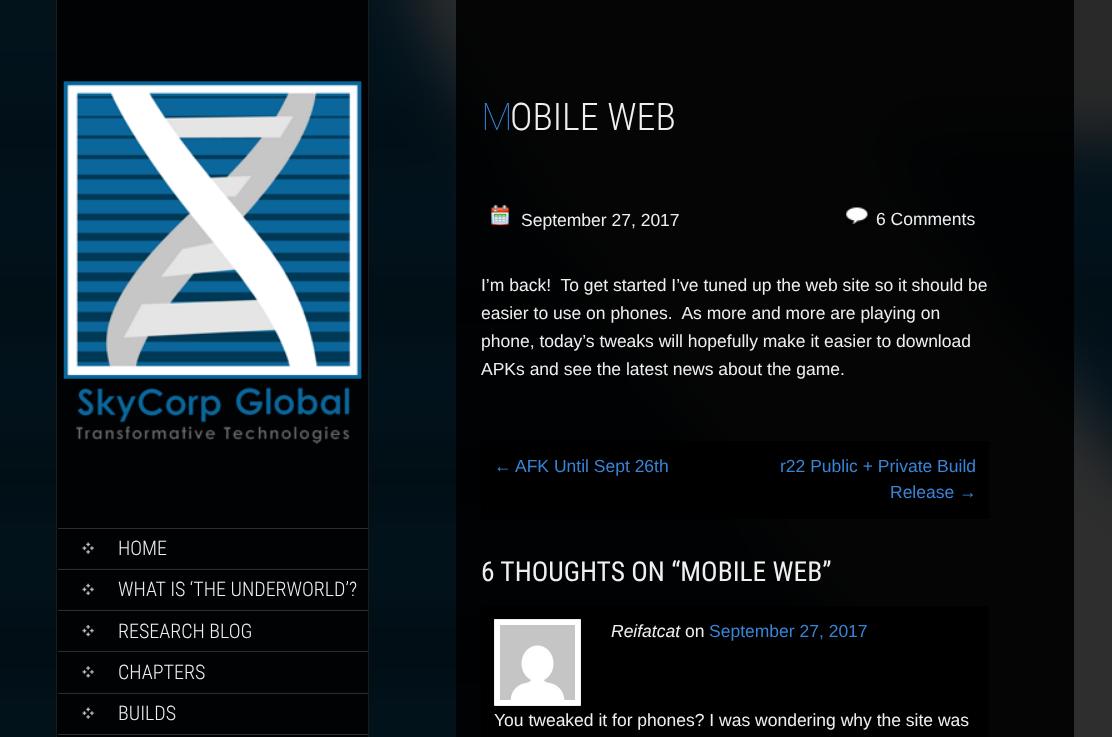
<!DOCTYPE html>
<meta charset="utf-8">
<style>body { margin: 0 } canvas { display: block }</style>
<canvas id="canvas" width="1112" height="737"></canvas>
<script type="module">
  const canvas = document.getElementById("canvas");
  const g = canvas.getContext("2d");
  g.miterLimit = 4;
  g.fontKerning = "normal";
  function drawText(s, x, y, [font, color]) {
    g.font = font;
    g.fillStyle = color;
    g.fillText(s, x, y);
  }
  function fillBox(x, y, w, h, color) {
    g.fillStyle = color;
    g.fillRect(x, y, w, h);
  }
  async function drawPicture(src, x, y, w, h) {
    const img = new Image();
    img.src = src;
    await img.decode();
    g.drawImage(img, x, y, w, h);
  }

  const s1 = ["300 20px Roboto Condensed", "#EFEFEF"];
  const s2 = ["100 38px Noto Sans", "#3885D8"];
  const s3 = ["300 38px Roboto Condensed", "#EFEFEF"];
  const s4 = ["17.5px Liberation Sans", "#EFEFEF"];
  const s5 = ["17.5px Liberation Sans", "#3885D8"];
  const s6 = ["27.5px Roboto Condensed", "#EFEFEF"];
  const s7 = ["italic 17.5px Liberation Sans", "#EFEFEF"];

  fillBox(0, 0, 1112, 737, "#FFFFFF");
  await drawPicture("pic1.png", 0, 0, 1112, 737);
  fillBox(368, 0, 1, 737, "#1B1B1B");
  fillBox(56, 0, 1, 737, "#1B1B1B");
  fillBox(57, 0, 311, 528, "rgba(0, 0, 0, 0.85)");
  await drawPicture("pic2.png", 63, 81, 299, 363);
  fillBox(57, 528, 311, 209, "rgba(0, 0, 0, 0.85)");
  fillBox(58, 528, 310, 1, "#2C2D2E");
  fillBox(58, 568, 310, 1, "#040506");
  await drawPicture("pic3.png", 82, 542, 12, 12);
  drawText("HOME", 118, 555, s1);
  fillBox(58, 569, 310, 1, "#2C2D2E");
  fillBox(58, 609, 310, 1, "#040506");
  await drawPicture("pic4.png", 82, 583, 12, 12);
  drawText("WHAT IS ‘THE UNDERWORLD’?", 118, 596, s1);
  fillBox(58, 610, 310, 1, "#2C2D2E");
  fillBox(58, 650, 310, 1, "#040506");
  await drawPicture("pic5.png", 82, 625, 12, 12);
  drawText("RESEARCH BLOG", 118, 638, s1);
  fillBox(58, 651, 310, 1, "#2C2D2E");
  fillBox(58, 691, 310, 1, "#040506");
  await drawPicture("pic6.png", 82, 666, 12, 12);
  drawText("CHAPTERS", 118, 679, s1);
  fillBox(58, 693, 310, 1, "#2C2D2E");
  fillBox(58, 733, 310, 1, "#040506");
  await drawPicture("pic7.png", 82, 707, 12, 12);
  drawText("BUILDS", 118, 720, s1);
  fillBox(58, 734, 310, 1, "#2C2D2E");
  fillBox(456, 0, 618, 737, "rgba(0, 0, 0, 0.88)");
  drawText("M", 481, 130, s2);
  drawText("OBILE WEB", 510, 130, s3);
  await drawPicture("pic8.png", 491, 204, 18, 22);
  drawText("September 27, 2017", 521, 226, s4);
  await drawPicture("pic9.png", 846, 207, 22, 17);
  drawText("6 Comments", 876, 225, s4);
  drawText("I’m back!  To get started I’ve tuned up the web site so it should be", 481, 291, s4);
  drawText("easier to use on phones.  As more and more are playing on", 481, 319, s4);
  drawText("phone, today’s tweaks will hopefully make it easier to download", 481, 347, s4);
  drawText("APKs and see the latest news about the game.", 481, 375, s4);
  fillBox(481, 441, 508, 78, "#000000");
  drawText("←", 494, 472, s5);
  drawText("AFK Until Sept 26th", 515, 472, s5);
  drawText("r22 Public + Private Build", 780, 472, s5);
  drawText("Release →", 890, 498, s5);
  drawText("6 THOUGHTS ON “MOBILE WEB”", 481, 581, s6);
  fillBox(481, 606, 508, 131, "#000000");
  g.fillStyle = "#FFFFFF";
  g.beginPath();
  g.rect(494.5, 619.5, 86, 86);
  g.fill();
  g.strokeStyle = "#EEEEEE";
  g.stroke();
  await drawPicture("pic10.png", 500, 625, 75, 75);
  drawText("Reifatcat", 611, 637, s7);
  drawText("on", 685, 637, s4);
  drawText("September 27, 2017", 709, 637, s5);
  drawText("You tweaked it for phones? I was wondering why the site was", 494, 726, s4);
</script>
